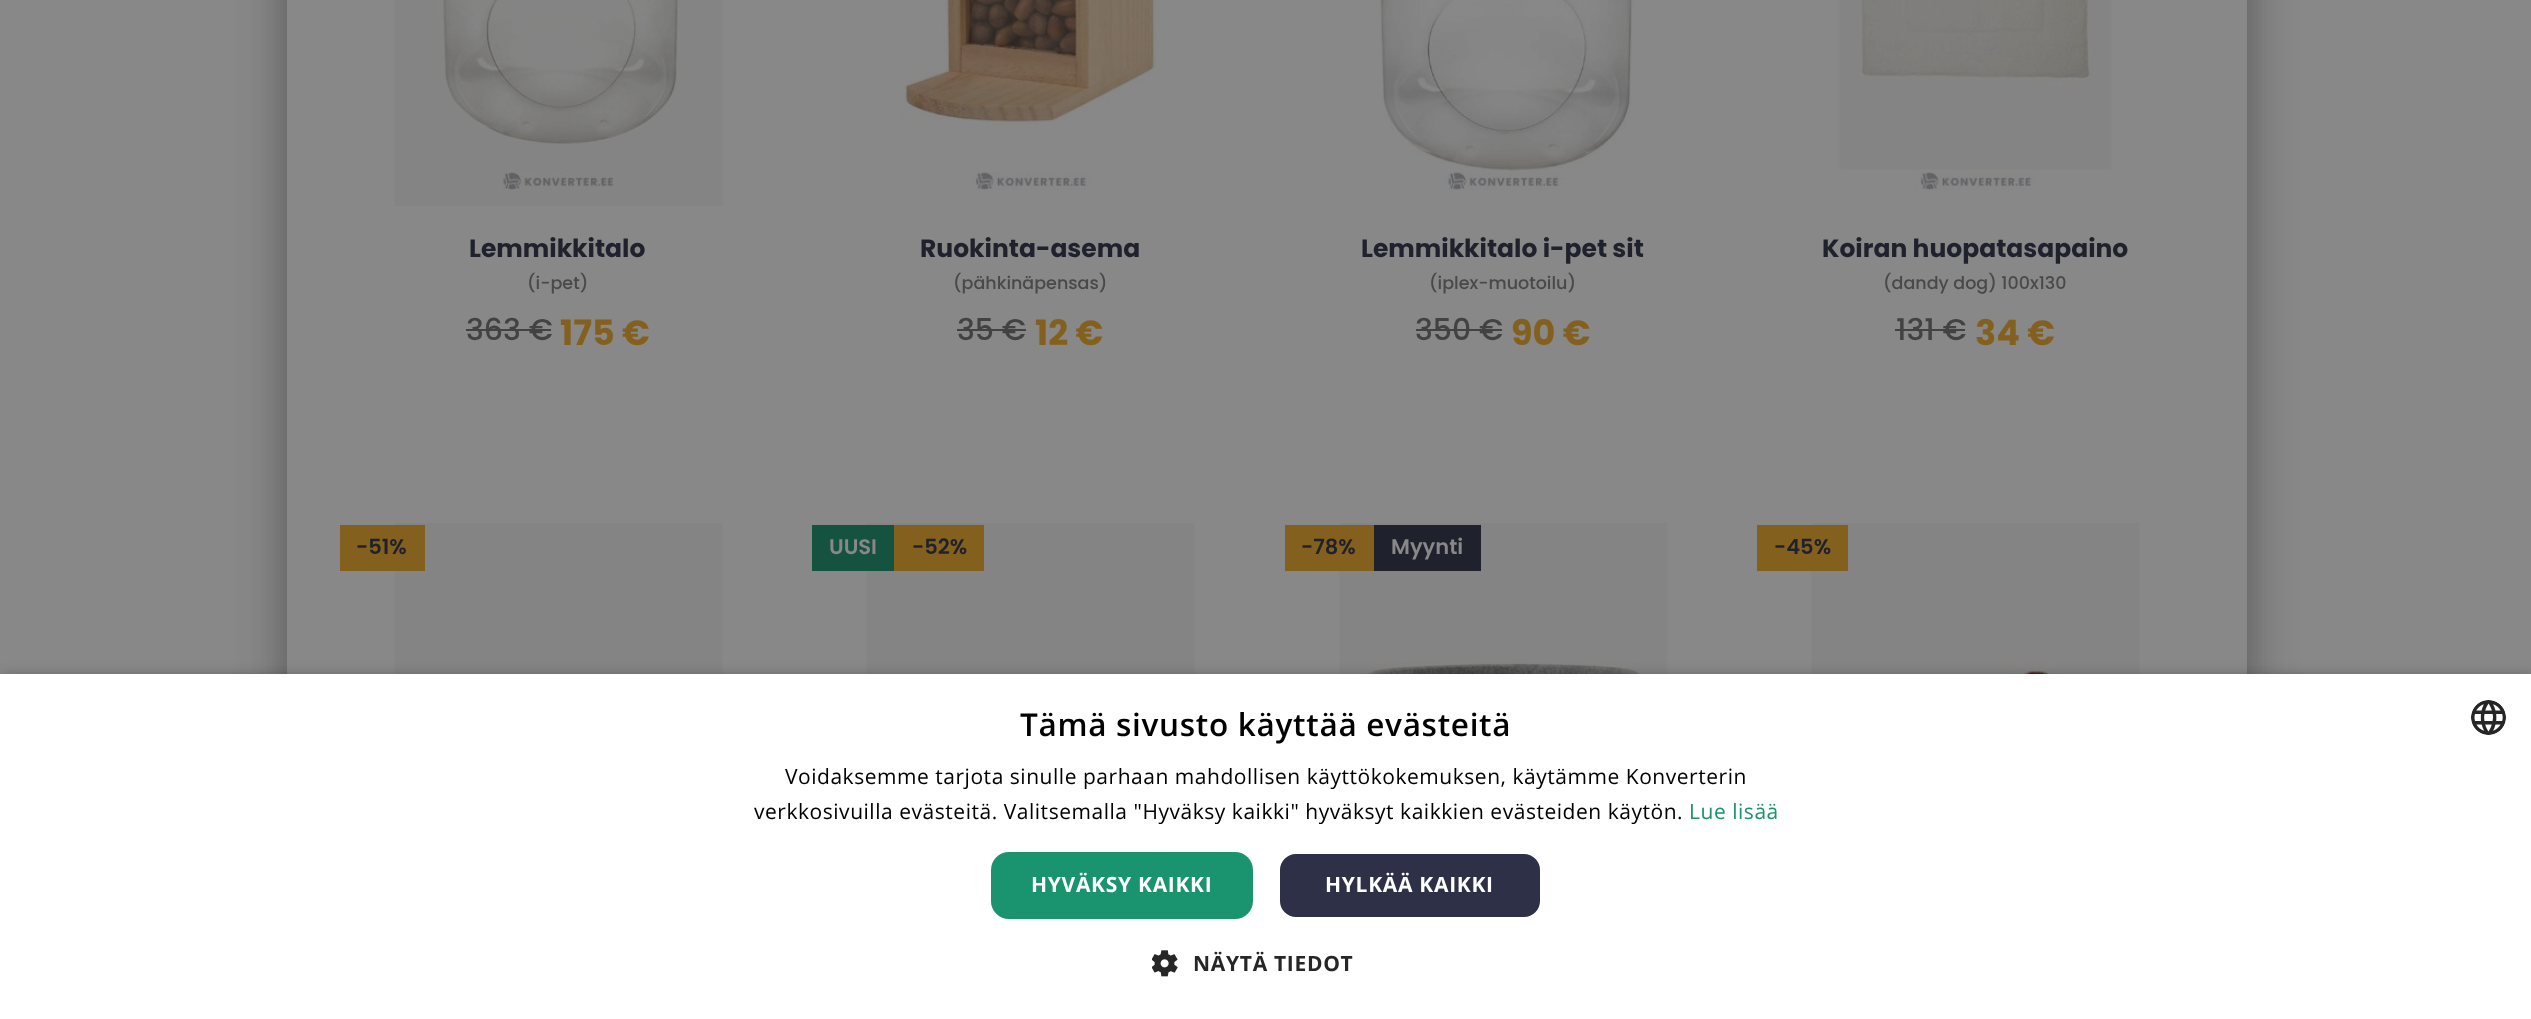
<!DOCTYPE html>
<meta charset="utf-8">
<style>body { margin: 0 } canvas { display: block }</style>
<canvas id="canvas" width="2531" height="1019"></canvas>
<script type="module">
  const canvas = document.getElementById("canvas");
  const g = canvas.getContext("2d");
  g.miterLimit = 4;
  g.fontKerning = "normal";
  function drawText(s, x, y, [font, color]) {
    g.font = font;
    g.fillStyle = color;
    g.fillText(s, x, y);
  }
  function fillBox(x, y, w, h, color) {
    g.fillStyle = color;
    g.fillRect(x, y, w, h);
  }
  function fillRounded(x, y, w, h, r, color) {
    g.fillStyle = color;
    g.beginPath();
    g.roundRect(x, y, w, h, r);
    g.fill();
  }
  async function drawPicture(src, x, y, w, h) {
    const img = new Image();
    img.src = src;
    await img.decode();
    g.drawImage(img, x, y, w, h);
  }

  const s1 = ["bold 25px Poppins", "#1F212C"];
  const s2 = ["500 17.5px Poppins", "#494949"];
  const s3 = ["500 30px Poppins", "#434242"];
  const s4 = ["bold 35px Poppins", "#84601F"];
  const s5 = ["600 21px Poppins", "#1F212C"];
  const s6 = ["600 21px Poppins", "#888888"];
  const s7 = ["600 31.5px Open Sans", "#000000"];
  const s8 = ["21px Open Sans", "#000000"];
  const s9 = ["21px Open Sans", "#1A936F"];
  const s10 = ["bold 21px Open Sans", "#FFFFFF"];
  const s11 = ["bold 21px Open Sans", "#262626"];

  fillBox(0, 0, 2531, 1019, "#888888");
  g.save();
  g.beginPath();
  g.moveTo(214, 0);
  g.lineTo(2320, 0);
  g.lineTo(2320, 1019);
  g.lineTo(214, 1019);
  g.closePath();
  g.moveTo(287, -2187);
  g.lineTo(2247, -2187);
  g.lineTo(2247, 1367);
  g.lineTo(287, 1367);
  g.closePath();
  g.clip("evenodd");
  g.fillStyle = "rgba(34, 34, 34, 0.75)";
  g.filter = "blur(28px)";
  g.beginPath();
  g.rect(299, -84, 1936, 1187);
  g.fill();
  g.filter = "none";
  g.restore();
  await drawPicture("pic1.png", 394, 0, 329, 206);
  drawText("Lemmikkitalo", 469, 257, s1);
  drawText("(i-pet)", 527, 289, s2);
  drawText("363 €", 466, 340, s3);
  fillBox(466, 329, 85, 2, "#434242");
  drawText("175 €", 560, 345, s4);
  await drawPicture("pic2.png", 900, 0, 261, 190);
  drawText("Ruokinta-asema", 920, 257, s1);
  drawText("(pähkinäpensas)", 953, 289, s2);
  drawText("35 €", 957, 340, s3);
  fillBox(957, 329, 69, 2, "#434242");
  drawText("12 €", 1035, 345, s4);
  await drawPicture("pic3.png", 1380, 0, 253, 190);
  drawText("Lemmikkitalo i-pet sit", 1361, 257, s1);
  drawText("(iplex-muotoilu)", 1429, 289, s2);
  drawText("350 €", 1415, 340, s3);
  fillBox(1416, 329, 86, 2, "#434242");
  drawText("90 €", 1511, 345, s4);
  await drawPicture("pic4.png", 1839, 0, 273, 190);
  drawText("Koiran huopatasapaino", 1822, 257, s1);
  drawText("(dandy dog) 100x130", 1883, 289, s2);
  drawText("131 €", 1896, 340, s3);
  fillBox(1895, 329, 70, 2, "#434242");
  drawText("34 €", 1975, 345, s4);
  await drawPicture("pic5.png", 394, 523, 329, 151);
  fillBox(340, 525, 85, 46, "#84601F");
  drawText("-51%", 356, 554, s5);
  await drawPicture("pic6.png", 866, 523, 329, 151);
  fillBox(812, 525, 82, 46, "#165240");
  drawText("UUSI", 829, 554, s6);
  fillBox(894, 525, 90, 46, "#84601F");
  drawText("-52%", 912, 554, s5);
  await drawPicture("pic7.png", 1339, 523, 329, 151);
  fillBox(1285, 525, 89, 46, "#84601F");
  drawText("-78%", 1301, 554, s5);
  fillBox(1374, 525, 107, 46, "#1F212C");
  drawText("Myynti", 1391, 554, s6);
  await drawPicture("pic8.png", 1811, 523, 329, 151);
  fillBox(1757, 525, 91, 46, "#84601F");
  drawText("-45%", 1774, 554, s5);
  g.fillStyle = "rgba(0, 0, 0, 0.35)";
  g.filter = "blur(7px)";
  g.beginPath();
  g.rect(2, 677, 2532, 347);
  g.fill();
  g.filter = "none";
  fillBox(0, 674, 2531, 345, "#FFFFFF");
  g.letterSpacing = "0.7px";
  drawText("Tämä sivusto käyttää evästeitä", 1020, 736, s7);
  await drawPicture("pic9.png", 2471, 700, 35, 35);
  g.letterSpacing = "0.53px";
  drawText("Voidaksemme tarjota sinulle parhaan mahdollisen käyttökokemuksen, käytämme Konverterin", 785, 784, s8);
  drawText("verkkosivuilla evästeitä. Valitsemalla \"Hyväksy kaikki\" hyväksyt kaikkien evästeiden käytön.", 754, 819, s8);
  drawText("Lue lisää", 1689, 819, s9);
  fillRounded(991, 852, 262, 67, 18, "#1A936F");
  g.letterSpacing = "0.7px";
  drawText("HYVÄKSY KAIKKI", 1031, 892, s10);
  g.fillStyle = "#2D3047";
  g.beginPath();
  g.roundRect(1279, 853, 262, 65, 17);
  g.fill();
  g.strokeStyle = "#FFFFFF";
  g.lineWidth = 2;
  g.stroke();
  drawText("HYLKÄÄ KAIKKI", 1325, 892, s10);
  await drawPicture("pic10.png", 1152, 950, 26, 27);
  drawText("NÄYTÄ TIEDOT", 1193, 971, s11);
</script>
